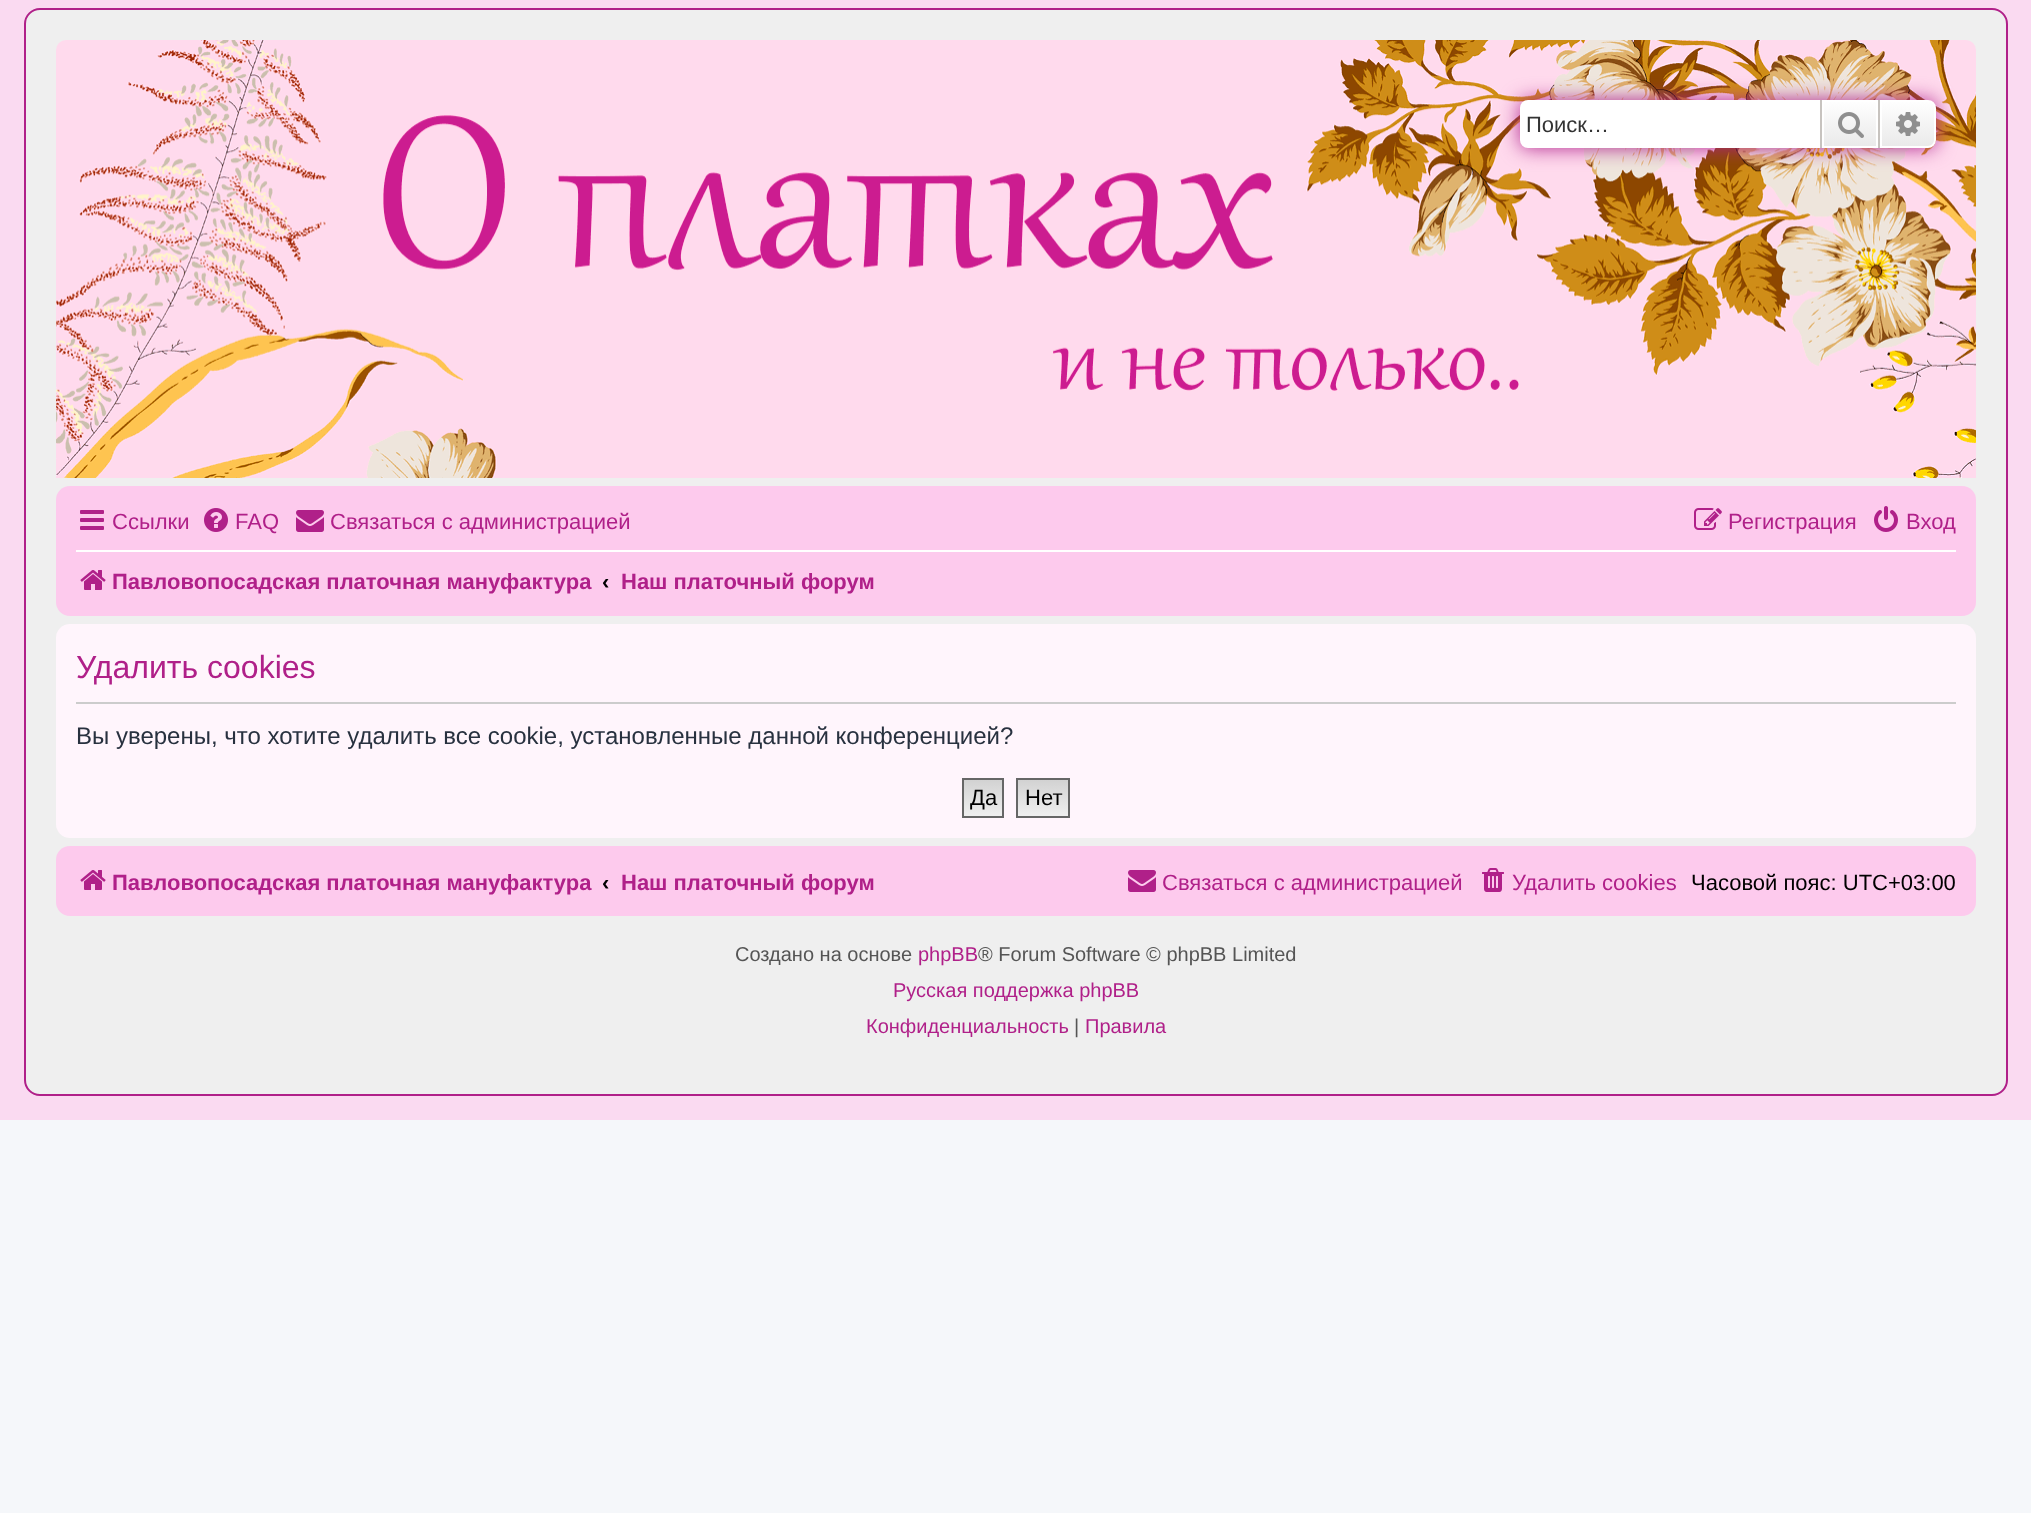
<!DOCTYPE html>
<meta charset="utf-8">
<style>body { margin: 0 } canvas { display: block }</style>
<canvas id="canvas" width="2031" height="1513"></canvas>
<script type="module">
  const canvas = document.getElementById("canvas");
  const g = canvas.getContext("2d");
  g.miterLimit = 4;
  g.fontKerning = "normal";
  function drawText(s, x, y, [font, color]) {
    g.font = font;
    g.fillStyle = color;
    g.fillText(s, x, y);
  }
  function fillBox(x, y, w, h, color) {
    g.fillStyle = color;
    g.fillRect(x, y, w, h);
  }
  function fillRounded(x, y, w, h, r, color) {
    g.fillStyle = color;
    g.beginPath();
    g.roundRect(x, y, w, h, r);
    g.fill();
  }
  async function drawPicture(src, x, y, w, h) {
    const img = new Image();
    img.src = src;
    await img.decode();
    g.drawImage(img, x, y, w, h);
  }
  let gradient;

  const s1 = ["22px Liberation Sans", "#333333"];
  const s2 = ["22px Liberation Sans", "#B02089"];
  const s3 = ["bold 22px Liberation Sans", "#B02089"];
  const s4 = ["bold 22px Liberation Sans", "#000000"];
  const s5 = ["32px Liberation Sans", "#B02089"];
  const s6 = ["24px Liberation Sans", "#28313F"];
  const s7 = ["22px Liberation Sans", "#000000"];
  const s8 = ["20px Liberation Sans", "#555555"];
  const s9 = ["20px Liberation Sans", "#B02089"];

  fillBox(0, 0, 2031, 1513, "#F5F7FA");
  fillBox(0, 0, 2031, 1120, "#FADAF1");
  g.fillStyle = "#EFEFEF";
  g.beginPath();
  g.roundRect(25, 9, 1982, 1086, 15);
  g.fill();
  g.strokeStyle = "#B02089";
  g.lineWidth = 2;
  g.stroke();
  await drawPicture("pic1.png", 56, 40, 1920, 438);
  g.fillStyle = "#AF228C";
  g.filter = "blur(10px)";
  g.beginPath();
  g.roundRect(1520, 100, 416, 48, 8);
  g.fill();
  g.filter = "none";
  g.fillStyle = "#FFFFFF";
  g.beginPath();
  g.roundRect(1520, 100, 300, 48, [8, 0, 0, 8]);
  g.fill();
  drawText("Поиск…", 1526, 132, s1);
  gradient = g.createLinearGradient(1850, 100, 1850, 148);
  gradient.addColorStop(0, "#FFFFFF");
  gradient.addColorStop(1, "#E9E9E9");
  g.fillStyle = gradient;
  g.fillRect(1824, 102, 52, 44);
  g.strokeStyle = "#FFFFFF";
  g.strokeRect(1823, 101, 54, 46);
  fillBox(1878, 100, 2, 48, "#C7C3BF");
  fillBox(1820, 100, 2, 48, "#C7C3BF");
  await drawPicture("pic2.png", 1838, 112, 26, 26);
  gradient = g.createLinearGradient(1908, 100, 1908, 148);
  gradient.addColorStop(0, "#FFFFFF");
  gradient.addColorStop(1, "#E9E9E9");
  g.fillStyle = gradient;
  g.beginPath();
  g.roundRect(1881, 101, 54, 46, [0, 7, 7, 0]);
  g.fill();
  g.stroke();
  await drawPicture("pic3.png", 1896, 112, 24, 24);
  fillRounded(56, 486, 1920, 130, 14, "#FDCAED");
  await drawPicture("pic4.png", 80, 510, 24, 20);
  drawText("Ссылки", 112, 529, s2);
  await drawPicture("pic5.png", 204, 508, 24, 24);
  drawText("FAQ", 235, 529, s2);
  await drawPicture("pic6.png", 296, 510, 28, 22);
  drawText("Связаться с администрацией", 330, 529, s2);
  await drawPicture("pic7.png", 1694, 508, 28, 22);
  drawText("Регистрация", 1728, 529, s2);
  await drawPicture("pic8.png", 1874, 506, 24, 26);
  drawText("Вход", 1906, 529, s2);
  fillBox(76, 550, 1880, 2, "#FFFFFF");
  await drawPicture("pic9.png", 80, 570, 26, 20);
  drawText("Павловопосадская платочная мануфактура", 112, 589, s3);
  drawText("‹", 602, 589, s4);
  drawText("Наш платочный форум", 621, 589, s3);
  fillRounded(56, 624, 1920, 214, 14, "#FFF5FC");
  fillBox(76, 702, 1880, 2, "#CCCCCC");
  drawText("Удалить cookies", 76, 678, s5);
  drawText("Вы уверены, что хотите удалить все cookie, установленные данной конференцией?", 76, 744, s6);
  gradient = g.createLinearGradient(983, 780, 983, 816);
  gradient.addColorStop(0, "#D2D2D2");
  gradient.addColorStop(1, "#EFEFEF");
  g.fillStyle = gradient;
  g.fillRect(964, 780, 38, 36);
  g.strokeStyle = "#666666";
  g.strokeRect(963, 779, 40, 38);
  drawText("Да", 970, 805, s7);
  gradient = g.createLinearGradient(1043, 780, 1043, 816);
  gradient.addColorStop(0, "#D2D2D2");
  gradient.addColorStop(1, "#EFEFEF");
  g.fillStyle = gradient;
  g.fillRect(1018, 780, 50, 36);
  g.strokeRect(1017, 779, 52, 38);
  drawText("Нет", 1025, 805, s7);
  fillRounded(56, 846, 1920, 70, 14, "#FDCAED");
  await drawPicture("pic9.png", 80, 870, 26, 20);
  drawText("Павловопосадская платочная мануфактура", 112, 890, s3);
  drawText("‹", 602, 890, s4);
  drawText("Наш платочный форум", 621, 890, s3);
  await drawPicture("pic6.png", 1128, 870, 28, 22);
  drawText("Связаться с администрацией", 1162, 890, s2);
  await drawPicture("pic10.png", 1482, 868, 22, 24);
  drawText("Удалить cookies", 1512, 890, s2);
  drawText("Часовой пояс: UTC+03:00", 1691, 890, s7);
  drawText("Создано на основе", 735, 961, s8);
  drawText("phpBB", 918, 961, s9);
  drawText("® Forum Software © phpBB Limited", 978, 961, s8);
  drawText("Русская поддержка phpBB", 893, 997, s9);
  drawText("Конфиденциальность", 866, 1033, s9);
  drawText("|", 1074, 1033, s8);
  drawText("Правила", 1085, 1033, s9);
</script>
